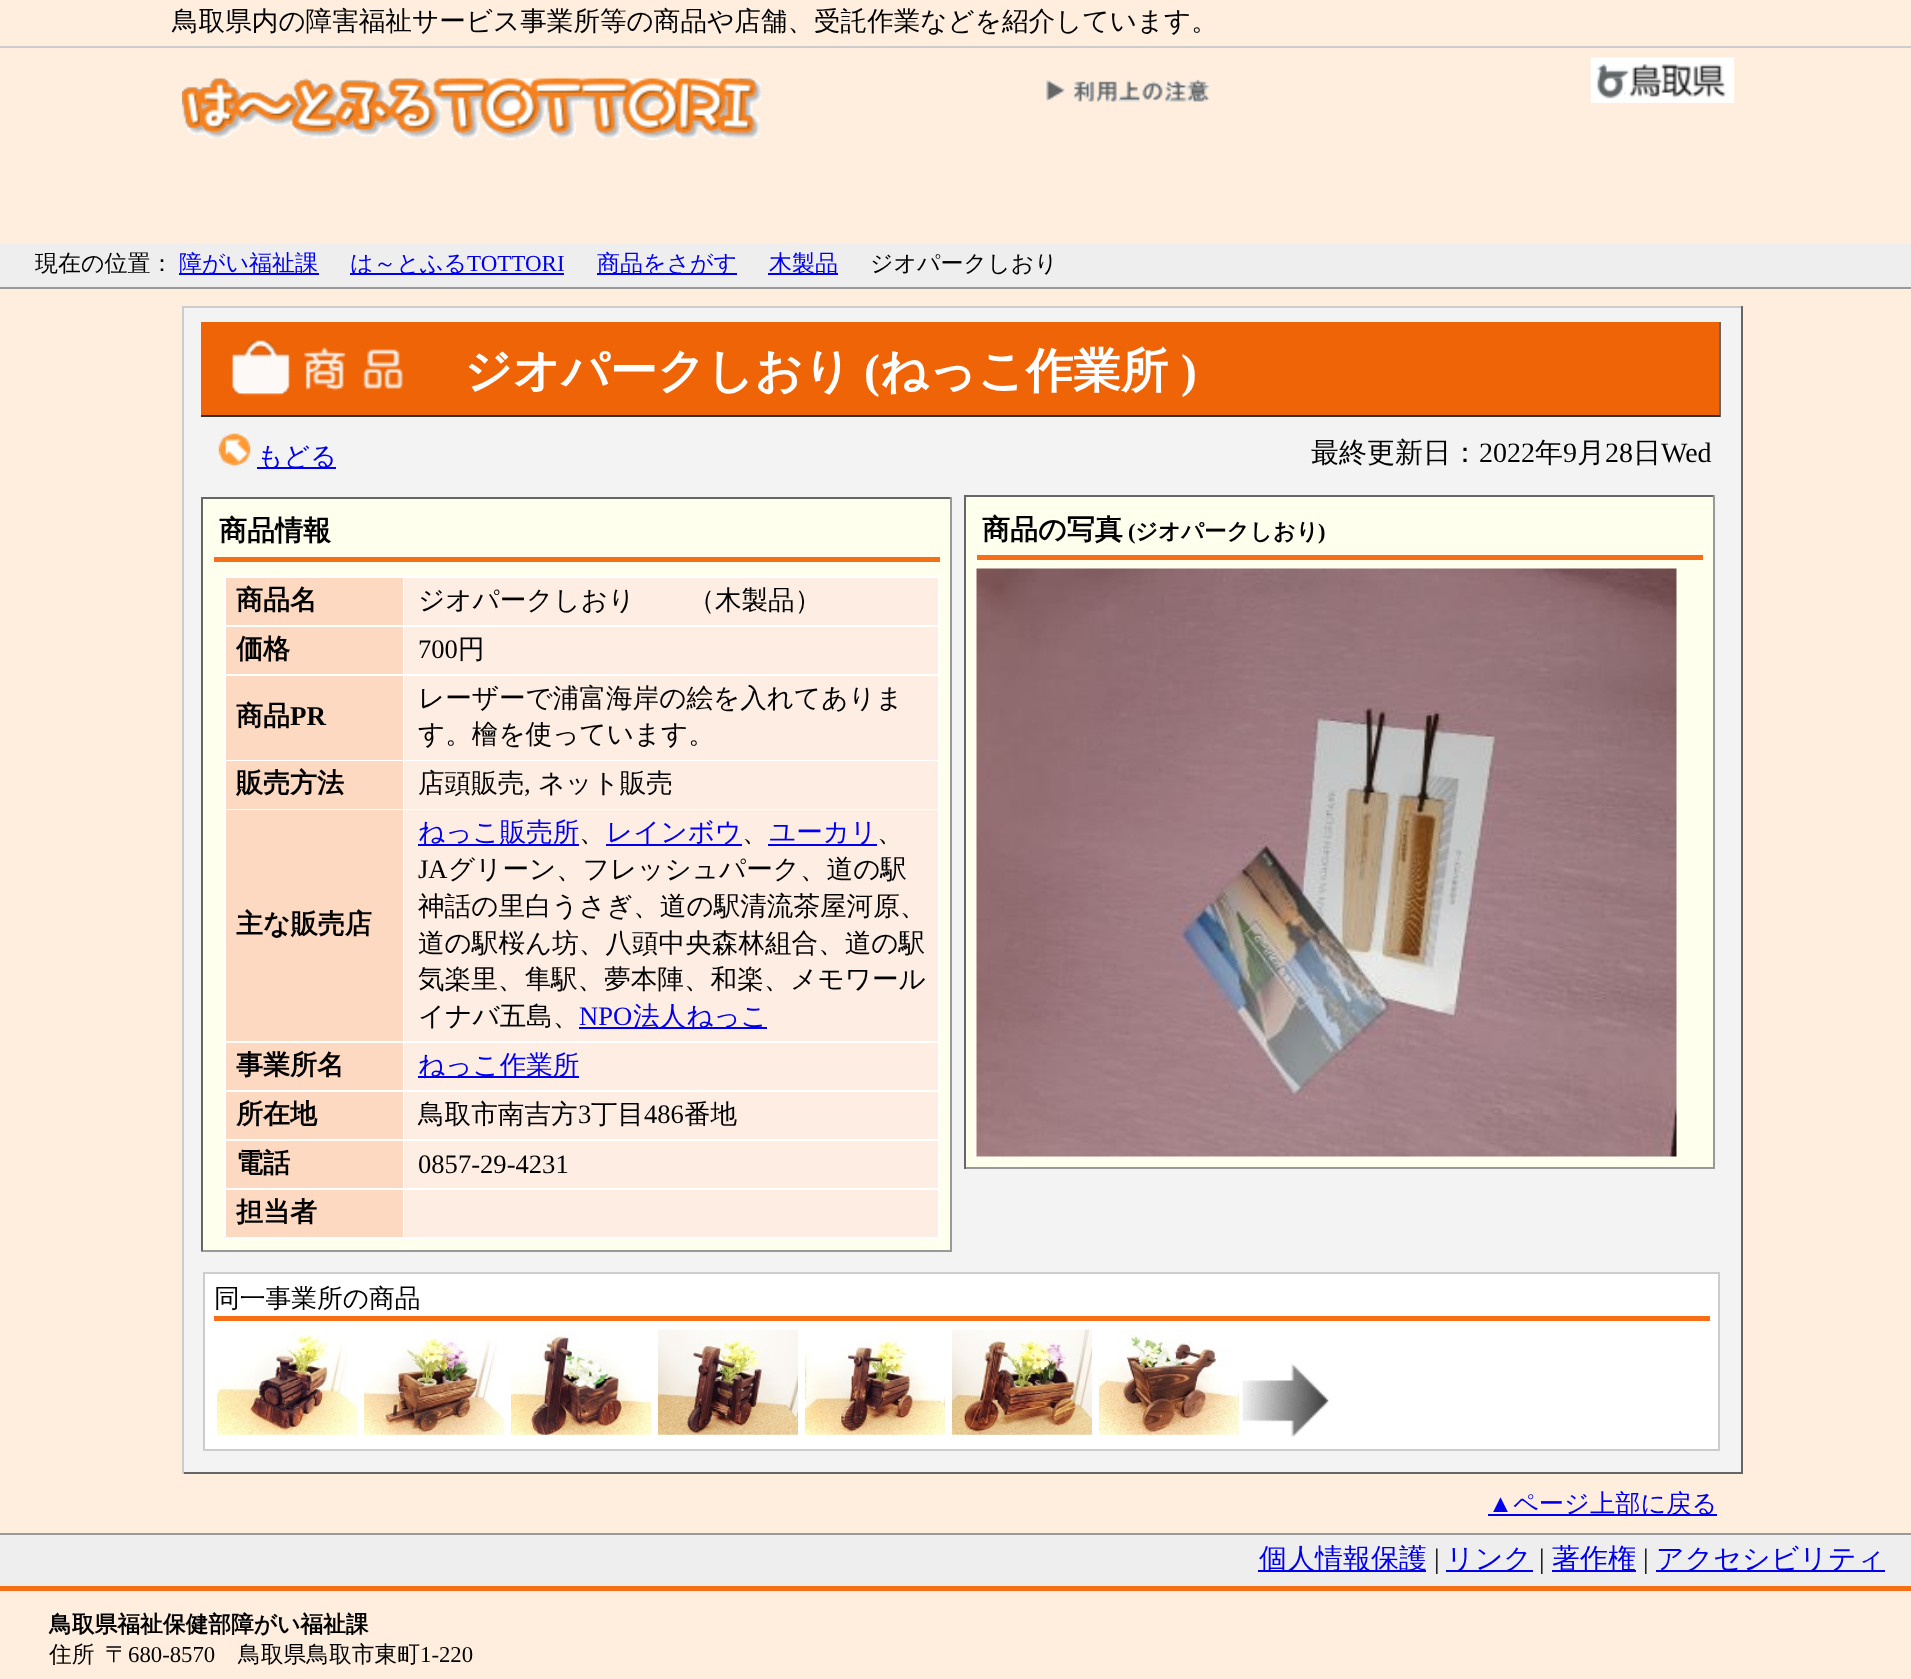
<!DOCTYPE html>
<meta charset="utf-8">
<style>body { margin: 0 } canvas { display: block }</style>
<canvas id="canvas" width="1911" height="1679"></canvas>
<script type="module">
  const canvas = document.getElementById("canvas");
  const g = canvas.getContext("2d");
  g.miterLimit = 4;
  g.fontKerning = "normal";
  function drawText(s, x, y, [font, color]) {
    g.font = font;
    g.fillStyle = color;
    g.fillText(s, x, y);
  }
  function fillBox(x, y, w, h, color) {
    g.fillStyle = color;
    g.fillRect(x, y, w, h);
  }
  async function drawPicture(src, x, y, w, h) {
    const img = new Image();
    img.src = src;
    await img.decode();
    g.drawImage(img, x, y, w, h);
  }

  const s1 = ["500 26.6px WenQuanYi Zen Hei", "#000000"];
  const s2 = ["500 23px WenQuanYi Zen Hei", "#000000"];
  const s3 = ["500 23px WenQuanYi Zen Hei", "#0000EE"];
  const s4 = ["23px Liberation Serif", "#0000EE"];
  const s5 = ["bold 47.5px WenQuanYi Zen Hei", "#FFFFFF"];
  const s6 = ["bold 47.5px Liberation Serif", "#FFFFFF"];
  const s7 = ["500 26px WenQuanYi Zen Hei", "#0000EE"];
  const s8 = ["500 28px WenQuanYi Zen Hei", "#000000"];
  const s9 = ["28px Liberation Serif", "#000000"];
  const s10 = ["bold 28px WenQuanYi Zen Hei", "#000000"];
  const s11 = ["bold 27px WenQuanYi Zen Hei", "#000000"];
  const s12 = ["26.6px Liberation Serif", "#000000"];
  const s13 = ["bold 27px Liberation Serif", "#000000"];
  const s14 = ["500 26.6px WenQuanYi Zen Hei", "#0000EE"];
  const s15 = ["26.6px Liberation Serif", "#0000EE"];
  const s16 = ["bold 22.5px Liberation Serif", "#000000"];
  const s17 = ["bold 22.5px WenQuanYi Zen Hei", "#000000"];
  const s18 = ["500 25.75px WenQuanYi Zen Hei", "#000000"];
  const s19 = ["25.25px Liberation Serif", "#0000EE"];
  const s20 = ["500 25.25px WenQuanYi Zen Hei", "#0000EE"];
  const s21 = ["500 28px WenQuanYi Zen Hei", "#0000EE"];
  const s22 = ["bold 22.75px WenQuanYi Zen Hei", "#000000"];
  const s23 = ["500 22.75px WenQuanYi Zen Hei", "#000000"];
  const s24 = ["22.75px Liberation Serif", "#000000"];

  fillBox(0, 0, 1911, 1679, "#FFEEDD");
  fillBox(0, 46, 1911, 2, "#CCCCCC");
  drawText("鳥取県内の障害福祉サービス事業所等の商品や店舗、受託作業などを紹介しています。", 172, 30, s1);
  await drawPicture("pic1.png", 182, 78, 580, 62);
  await drawPicture("pic2.png", 1046, 79, 164, 23);
  await drawPicture("pic3.png", 1590, 57, 145, 46);
  fillBox(0, 243, 1911, 44, "#EEEEEE");
  fillBox(0, 287, 1911, 2, "#999999");
  drawText("現在の位置：", 35, 271, s2);
  fillBox(179, 273, 140, 2, "#0000EE");
  drawText("障がい福祉課", 179, 271, s3);
  fillBox(350, 273, 214, 2, "#0000EE");
  drawText("は～とふる", 350, 271, s3);
  drawText("TOTTORI", 467, 271, s4);
  fillBox(597, 273, 140, 2, "#0000EE");
  drawText("商品をさがす", 597, 271, s3);
  fillBox(768, 273, 70, 2, "#0000EE");
  drawText("木製品", 769, 271, s3);
  drawText("ジオパークしおり", 870, 271, s2);
  fillBox(184, 308, 1557, 1164, "#F3F3F3");
  fillBox(182, 306, 1561, 2, "#CCCCCC");
  fillBox(1741, 306, 2, 1168, "#666666");
  fillBox(182, 1472, 1561, 2, "#666666");
  fillBox(182, 306, 2, 1168, "#CCCCCC");
  fillBox(201, 322, 1518, 93, "#EF6407");
  await drawPicture("pic4.png", 231, 340, 172, 56);
  fillBox(1719, 322, 2, 95, "#666666");
  fillBox(201, 415, 1519, 2, "#333333");
  drawText("ジオパークしおり", 464, 387, s5);
  drawText("(", 864, 387, s6);
  drawText("ねっこ作業所", 880, 387, s5);
  drawText(")", 1181, 387, s6);
  await drawPicture("pic5.png", 218, 433, 33, 33);
  fillBox(257, 467, 79, 2, "#0000EE");
  drawText("もどる", 257, 465, s7);
  drawText("最終更新日：", 1311, 462, s8);
  drawText("2022", 1479, 462, s9);
  drawText("年", 1535, 462, s8);
  drawText("9", 1563, 462, s9);
  drawText("月", 1577, 462, s8);
  drawText("28", 1605, 462, s9);
  drawText("日", 1633, 462, s8);
  drawText("Wed", 1661, 462, s9);
  fillBox(203, 499, 747, 751, "#FFFFEE");
  fillBox(201, 497, 751, 2, "#666666");
  fillBox(950, 497, 2, 754, "#999999");
  fillBox(201, 1250, 751, 2, "#999999");
  fillBox(201, 497, 2, 754, "#666666");
  fillBox(214, 557, 726, 5, "#F66F16");
  drawText("商品情報", 219, 540, s10);
  fillBox(224, 576, 716, 663, "#FFFFFF");
  fillBox(226, 578, 177, 47, "#FDD9C1");
  drawText("商品名", 236, 609, s11);
  fillBox(404, 578, 534, 47, "#FEEDE2");
  drawText("ジオパークしおり　　（木製品）", 418, 609, s1);
  fillBox(226, 627, 177, 47, "#FDD9C1");
  drawText("価格", 236, 658, s11);
  fillBox(404, 627, 534, 47, "#FEEDE2");
  drawText("700", 418, 658, s12);
  drawText("円", 458, 658, s1);
  fillBox(226, 676, 177, 84, "#FDD9C1");
  drawText("商品", 236, 725, s11);
  drawText("PR", 290, 725, s13);
  fillBox(404, 676, 534, 84, "#FEEDE2");
  drawText("レーザーで浦富海岸の絵を入れてありま", 418, 707, s1);
  drawText("す。檜を使っています。", 418, 743, s1);
  fillBox(226, 761, 177, 48, "#FDD9C1");
  drawText("販売方法", 236, 792, s11);
  fillBox(404, 761, 534, 48, "#FEEDE2");
  drawText("店頭販売", 418, 792, s1);
  drawText(",", 524, 792, s12);
  drawText("ネット販売", 538, 792, s1);
  fillBox(226, 810, 177, 231, "#FDD9C1");
  drawText("主な販売店", 236, 933, s11);
  fillBox(404, 810, 534, 231, "#FEEDE2");
  fillBox(418, 844, 161, 2, "#0000EE");
  drawText("ねっこ販売所", 418, 841, s14);
  drawText("、", 579, 841, s1);
  fillBox(606, 844, 136, 2, "#0000EE");
  drawText("レインボウ", 606, 841, s14);
  drawText("、", 742, 841, s1);
  fillBox(768, 844, 109, 2, "#0000EE");
  drawText("ユーカリ", 769, 841, s14);
  drawText("、", 877, 841, s1);
  drawText("JA", 418, 878, s12);
  drawText("グリーン、フレッシュパーク、道の駅", 448, 878, s1);
  drawText("神話の里白うさぎ、道の駅清流茶屋河原、", 418, 915, s1);
  drawText("道の駅桜ん坊、八頭中央森林組合、道の駅", 418, 952, s1);
  drawText("気楽里、隼駅、夢本陣、和楽、メモワール", 418, 988, s1);
  drawText("イナバ五島、", 418, 1025, s1);
  drawText("NPO", 579, 1025, s15);
  fillBox(579, 1027, 188, 2, "#0000EE");
  drawText("法人ねっこ", 633, 1025, s14);
  fillBox(226, 1043, 177, 47, "#FDD9C1");
  drawText("事業所名", 236, 1074, s11);
  fillBox(404, 1043, 534, 47, "#FEEDE2");
  fillBox(418, 1076, 161, 2, "#0000EE");
  drawText("ねっこ作業所", 418, 1074, s14);
  fillBox(226, 1092, 177, 47, "#FDD9C1");
  drawText("所在地", 236, 1123, s11);
  fillBox(404, 1092, 534, 47, "#FEEDE2");
  drawText("鳥取市南吉方", 418, 1123, s1);
  drawText("3", 578, 1123, s12);
  drawText("丁目", 591, 1123, s1);
  drawText("486", 644, 1123, s12);
  drawText("番地", 684, 1123, s1);
  fillBox(226, 1141, 177, 47, "#FDD9C1");
  drawText("電話", 236, 1172, s11);
  fillBox(404, 1141, 534, 47, "#FEEDE2");
  drawText("0857-29-4231", 418, 1173, s12);
  fillBox(226, 1190, 177, 47, "#FDD9C1");
  drawText("担当者", 236, 1221, s11);
  fillBox(404, 1190, 534, 47, "#FEEDE2");
  fillBox(966, 497, 747, 670, "#FFFFEE");
  fillBox(964, 495, 751, 2, "#666666");
  fillBox(1713, 495, 2, 674, "#999999");
  fillBox(964, 1167, 751, 2, "#999999");
  fillBox(964, 495, 2, 674, "#666666");
  fillBox(977, 555, 726, 5, "#F66F16");
  drawText("商品の写真", 982, 539, s10);
  drawText("(", 1128, 539, s16);
  drawText("ジオパークしおり", 1135, 539, s17);
  drawText(")", 1318, 539, s16);
  await drawPicture("pic6.png", 976, 568, 701, 589);
  g.fillStyle = "#FFFFFF";
  g.beginPath();
  g.rect(204, 1273, 1515, 177);
  g.fill();
  g.strokeStyle = "#CCCCCC";
  g.lineWidth = 2;
  g.stroke();
  fillBox(214, 1316, 1496, 5, "#F66F16");
  drawText("同一事業所の商品", 214, 1307, s18);
  await drawPicture("pic7.png", 217, 1330, 140, 105);
  await drawPicture("pic8.png", 364, 1330, 140, 105);
  await drawPicture("pic9.png", 511, 1330, 140, 105);
  await drawPicture("pic10.png", 658, 1329, 140, 106);
  await drawPicture("pic11.png", 805, 1332, 140, 103);
  await drawPicture("pic12.png", 952, 1329, 140, 106);
  await drawPicture("pic13.png", 1099, 1330, 140, 105);
  await drawPicture("pic14.png", 1242, 1364, 87, 73);
  drawText("▲", 1488, 1512, s19);
  fillBox(1488, 1514, 229, 2, "#0000EE");
  drawText("ページ上部に戻る", 1513, 1512, s20);
  fillBox(0, 1535, 1911, 51, "#EEEEEE");
  fillBox(0, 1533, 1911, 2, "#999999");
  fillBox(0, 1586, 1911, 5, "#F66F16");
  fillBox(1258, 1570, 168, 2, "#0000EE");
  drawText("個人情報保護", 1259, 1568, s21);
  drawText("|", 1434, 1568, s9);
  fillBox(1446, 1570, 87, 2, "#0000EE");
  drawText("リンク", 1446, 1568, s21);
  drawText("|", 1539, 1568, s9);
  fillBox(1552, 1570, 84, 2, "#0000EE");
  drawText("著作権", 1552, 1568, s21);
  drawText("|", 1643, 1568, s9);
  fillBox(1656, 1570, 229, 2, "#0000EE");
  drawText("アクセシビリティ", 1656, 1568, s21);
  drawText("鳥取県福祉保健部障がい福祉課", 49, 1632, s22);
  drawText("住所", 49, 1662, s23);
  drawText("〒", 105, 1662, s23);
  drawText("680-8570", 128, 1662, s24);
  drawText("鳥取県鳥取市東町", 238, 1662, s23);
  drawText("1-220", 420, 1662, s24);
</script>
